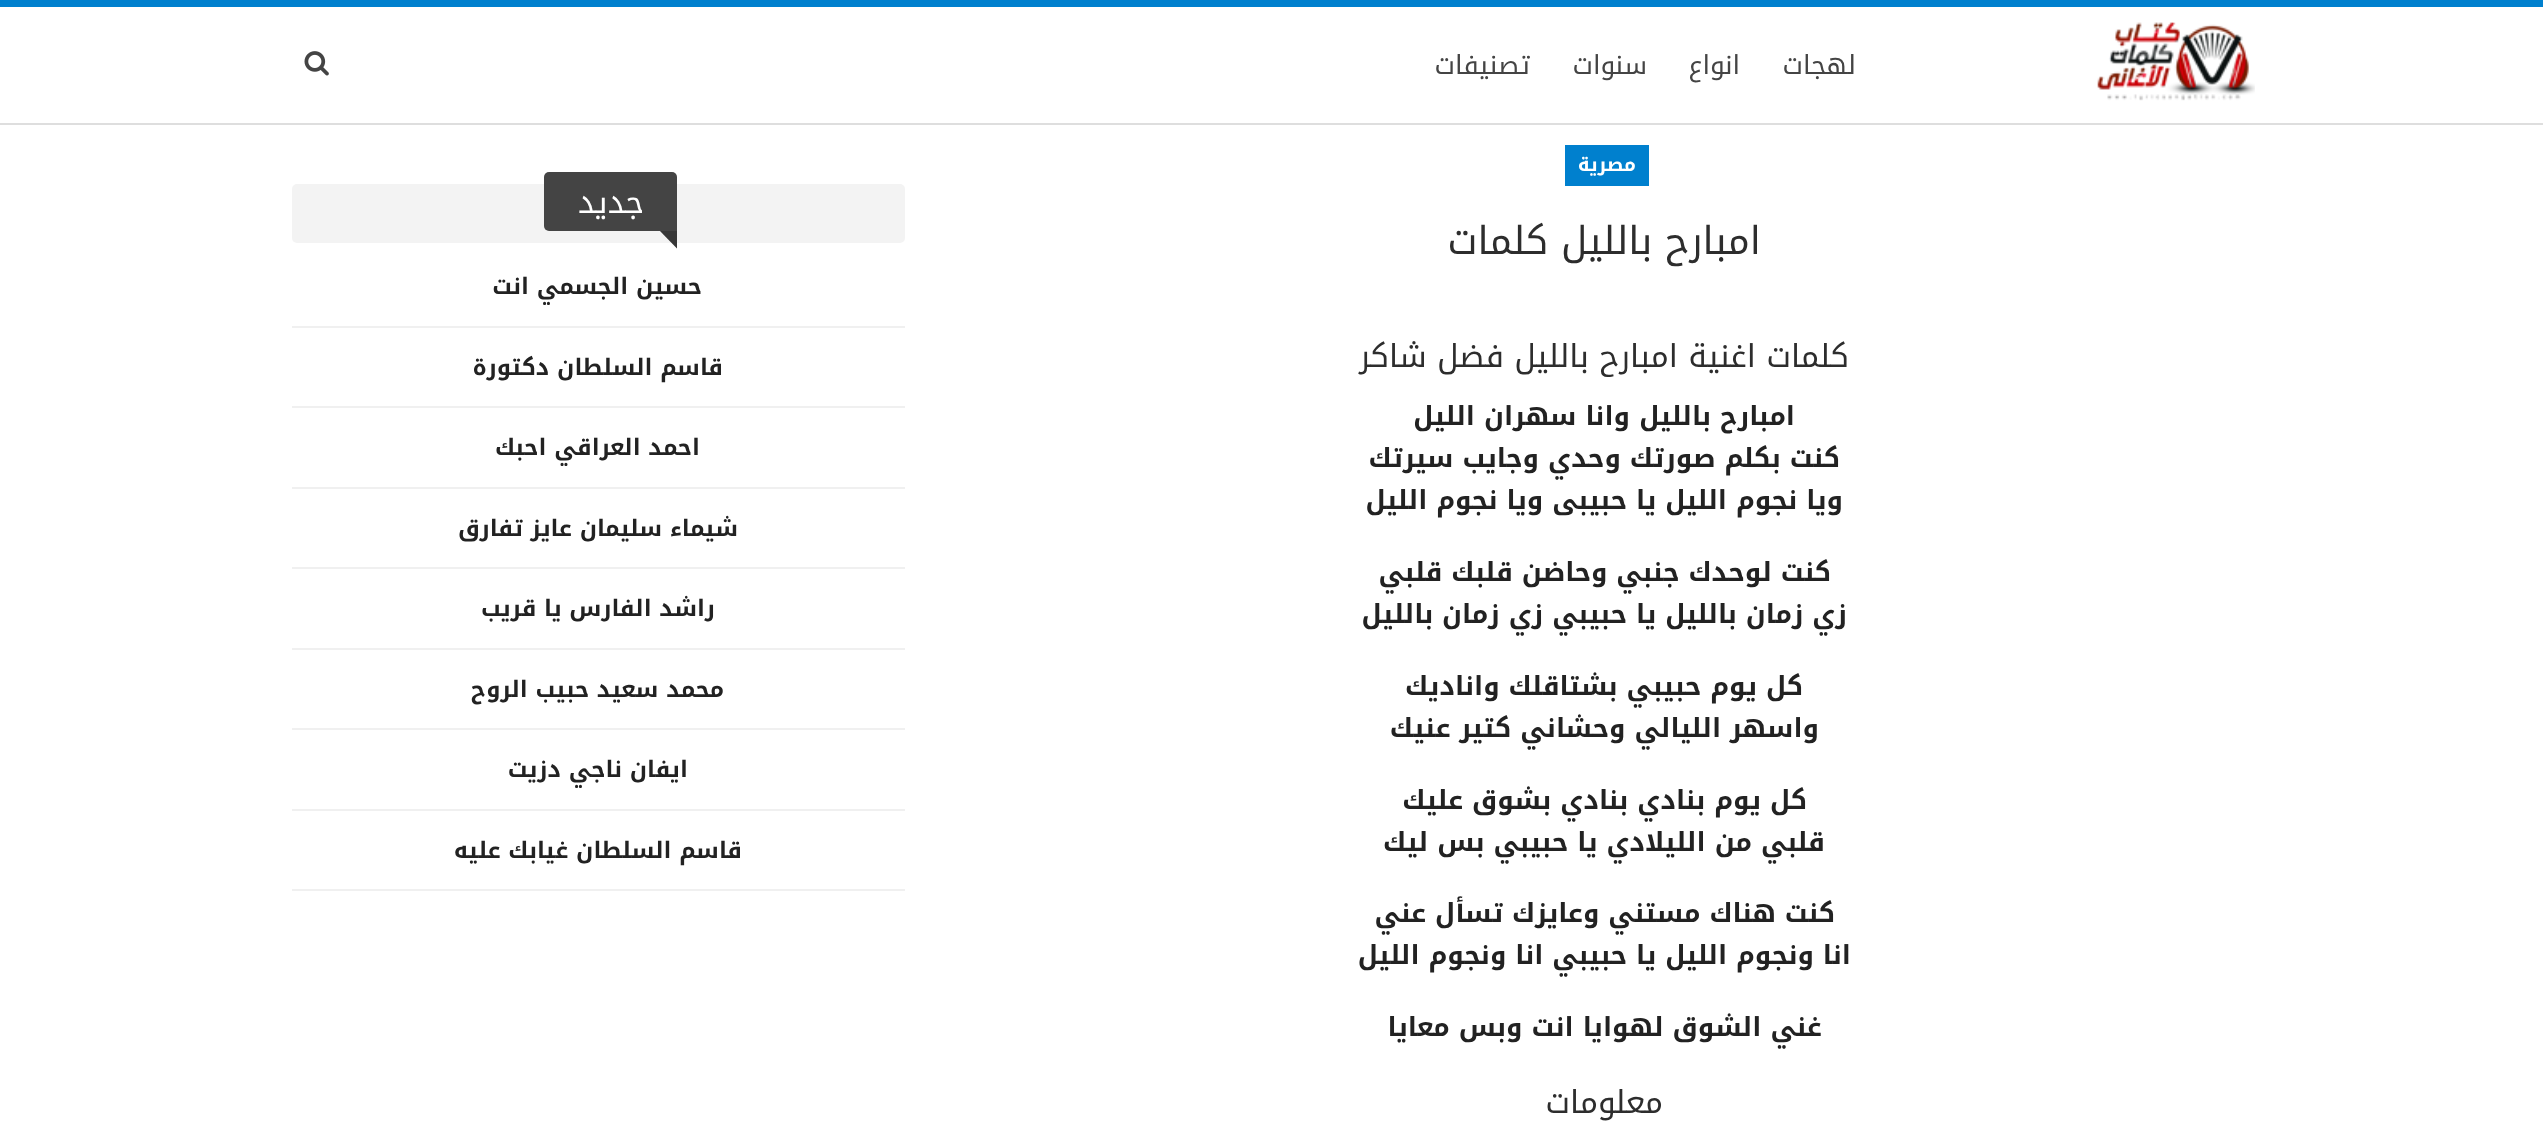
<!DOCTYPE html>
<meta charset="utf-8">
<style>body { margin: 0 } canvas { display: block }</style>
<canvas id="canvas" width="2543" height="1129"></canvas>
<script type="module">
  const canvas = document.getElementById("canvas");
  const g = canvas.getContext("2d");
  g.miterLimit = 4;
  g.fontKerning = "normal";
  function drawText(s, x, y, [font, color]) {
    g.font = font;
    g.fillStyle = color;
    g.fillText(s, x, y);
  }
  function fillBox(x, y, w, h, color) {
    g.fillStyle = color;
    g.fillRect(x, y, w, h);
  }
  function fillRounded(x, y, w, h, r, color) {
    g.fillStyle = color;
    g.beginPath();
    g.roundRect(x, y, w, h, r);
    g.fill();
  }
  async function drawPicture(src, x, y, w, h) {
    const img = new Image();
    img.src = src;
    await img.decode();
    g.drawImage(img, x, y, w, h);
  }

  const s1 = ["26.25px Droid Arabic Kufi", "#444444"];
  const s2 = ["bold 19px Droid Arabic Kufi", "#FFFFFF"];
  const s3 = ["38.5px Droid Arabic Kufi", "#2D2D2D"];
  const s4 = ["31.5px Droid Arabic Kufi", "#2D2D2D"];
  const s5 = ["bold 26.25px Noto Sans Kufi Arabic", "#222222"];
  const s6 = ["31.5px Droid Arabic Kufi", "#FFFFFF"];
  const s7 = ["bold 22.75px Droid Arabic Kufi", "#222222"];

  fillBox(0, 0, 2543, 1129, "#FFFFFF");
  fillBox(0, 0, 2543, 7, "#0080CE");
  fillBox(0, 123, 2543, 2, "#DEDEDE");
  await drawPicture("pic1.png", 2097, 22, 158, 79);
  g.direction = "rtl";
  drawText("لهجات", 1856, 74, s1);
  drawText("انواع", 1740, 74, s1);
  drawText("سنوات", 1647, 74, s1);
  drawText("تصنيفات", 1530, 74, s1);
  await drawPicture("pic2.png", 304, 51, 25, 25);
  fillBox(1565, 145, 84, 41, "#0080CE");
  drawText("مصرية", 1636, 171, s2);
  drawText("امبارح بالليل كلمات", 1761, 254, s3);
  drawText("كلمات اغنية امبارح بالليل فضل شاكر", 1849, 367, s4);
  drawText("امبارح بالليل", 1795, 425, s5);
  drawText("وانا سهران الليل", 1630, 425, s5);
  drawText("كنت بكلم صورتك وحدي وجايب سيرتك", 1840, 467, s5);
  drawText("ويا نجوم الليل يا حبيبى ويا نجوم الليل", 1843, 509, s5);
  drawText("كنت لوحدك جنبي وحاضن قلبك قلبي", 1831, 581, s5);
  drawText("زي زمان بالليل يا حبيبي زي زمان بالليل", 1847, 623, s5);
  drawText("كل يوم حبيبي بشتاقلك واناديك", 1803, 695, s5);
  drawText("واسهر الليالي وحشاني كتير عنيك", 1819, 737, s5);
  drawText("كل يوم بنادي بنادي بشوق عليك", 1807, 809, s5);
  drawText("قلبي من الليلادي يا حبيبي بس ليك", 1825, 851, s5);
  drawText("كنت هناك مستني وعايزك تسأل عني", 1835, 922, s5);
  drawText("انا ونجوم الليل يا حبيبي انا ونجوم الليل", 1851, 964, s5);
  drawText("غني الشوق لهوايا انت وبس معايا", 1822, 1036, s5);
  drawText("معلومات", 1663, 1113, s4);
  fillRounded(292, 184, 613, 59, 5, "#F3F3F3");
  g.fillStyle = "#444444";
  g.beginPath();
  g.roundRect(544, 172, 133, 59, [5, 5, 0, 5]);
  g.fill();
  drawText("جديد", 644, 213, s6);
  g.fillStyle = "#444444";
  g.beginPath();
  g.moveTo(660, 231);
  g.lineTo(677, 231);
  g.lineTo(677, 248.5);
  g.closePath();
  g.fill();
  g.fillStyle = "rgba(0, 0, 0, 0.18)";
  g.beginPath();
  g.moveTo(660, 231);
  g.lineTo(677, 231);
  g.lineTo(677, 248.5);
  g.closePath();
  g.fill();
  fillBox(292, 326, 613, 2, "#F0F0F0");
  drawText("حسين الجسمي انت", 702, 294, s7);
  fillBox(292, 406, 613, 2, "#F0F0F0");
  drawText("قاسم السلطان دكتورة", 723, 375, s7);
  fillBox(292, 487, 613, 2, "#F0F0F0");
  drawText("احمد العراقي احبك", 700, 455, s7);
  fillBox(292, 567, 613, 2, "#F0F0F0");
  drawText("شيماء سليمان عايز تفارق", 738, 536, s7);
  fillBox(292, 648, 613, 2, "#F0F0F0");
  drawText("راشد الفارس يا قريب", 715, 616, s7);
  fillBox(292, 728, 613, 2, "#F0F0F0");
  drawText("محمد سعيد حبيب الروح", 724, 697, s7);
  fillBox(292, 809, 613, 2, "#F0F0F0");
  drawText("ايفان ناجي دزيت", 688, 777, s7);
  fillBox(292, 889, 613, 2, "#F0F0F0");
  drawText("قاسم السلطان غيابك عليه", 742, 858, s7);
</script>
